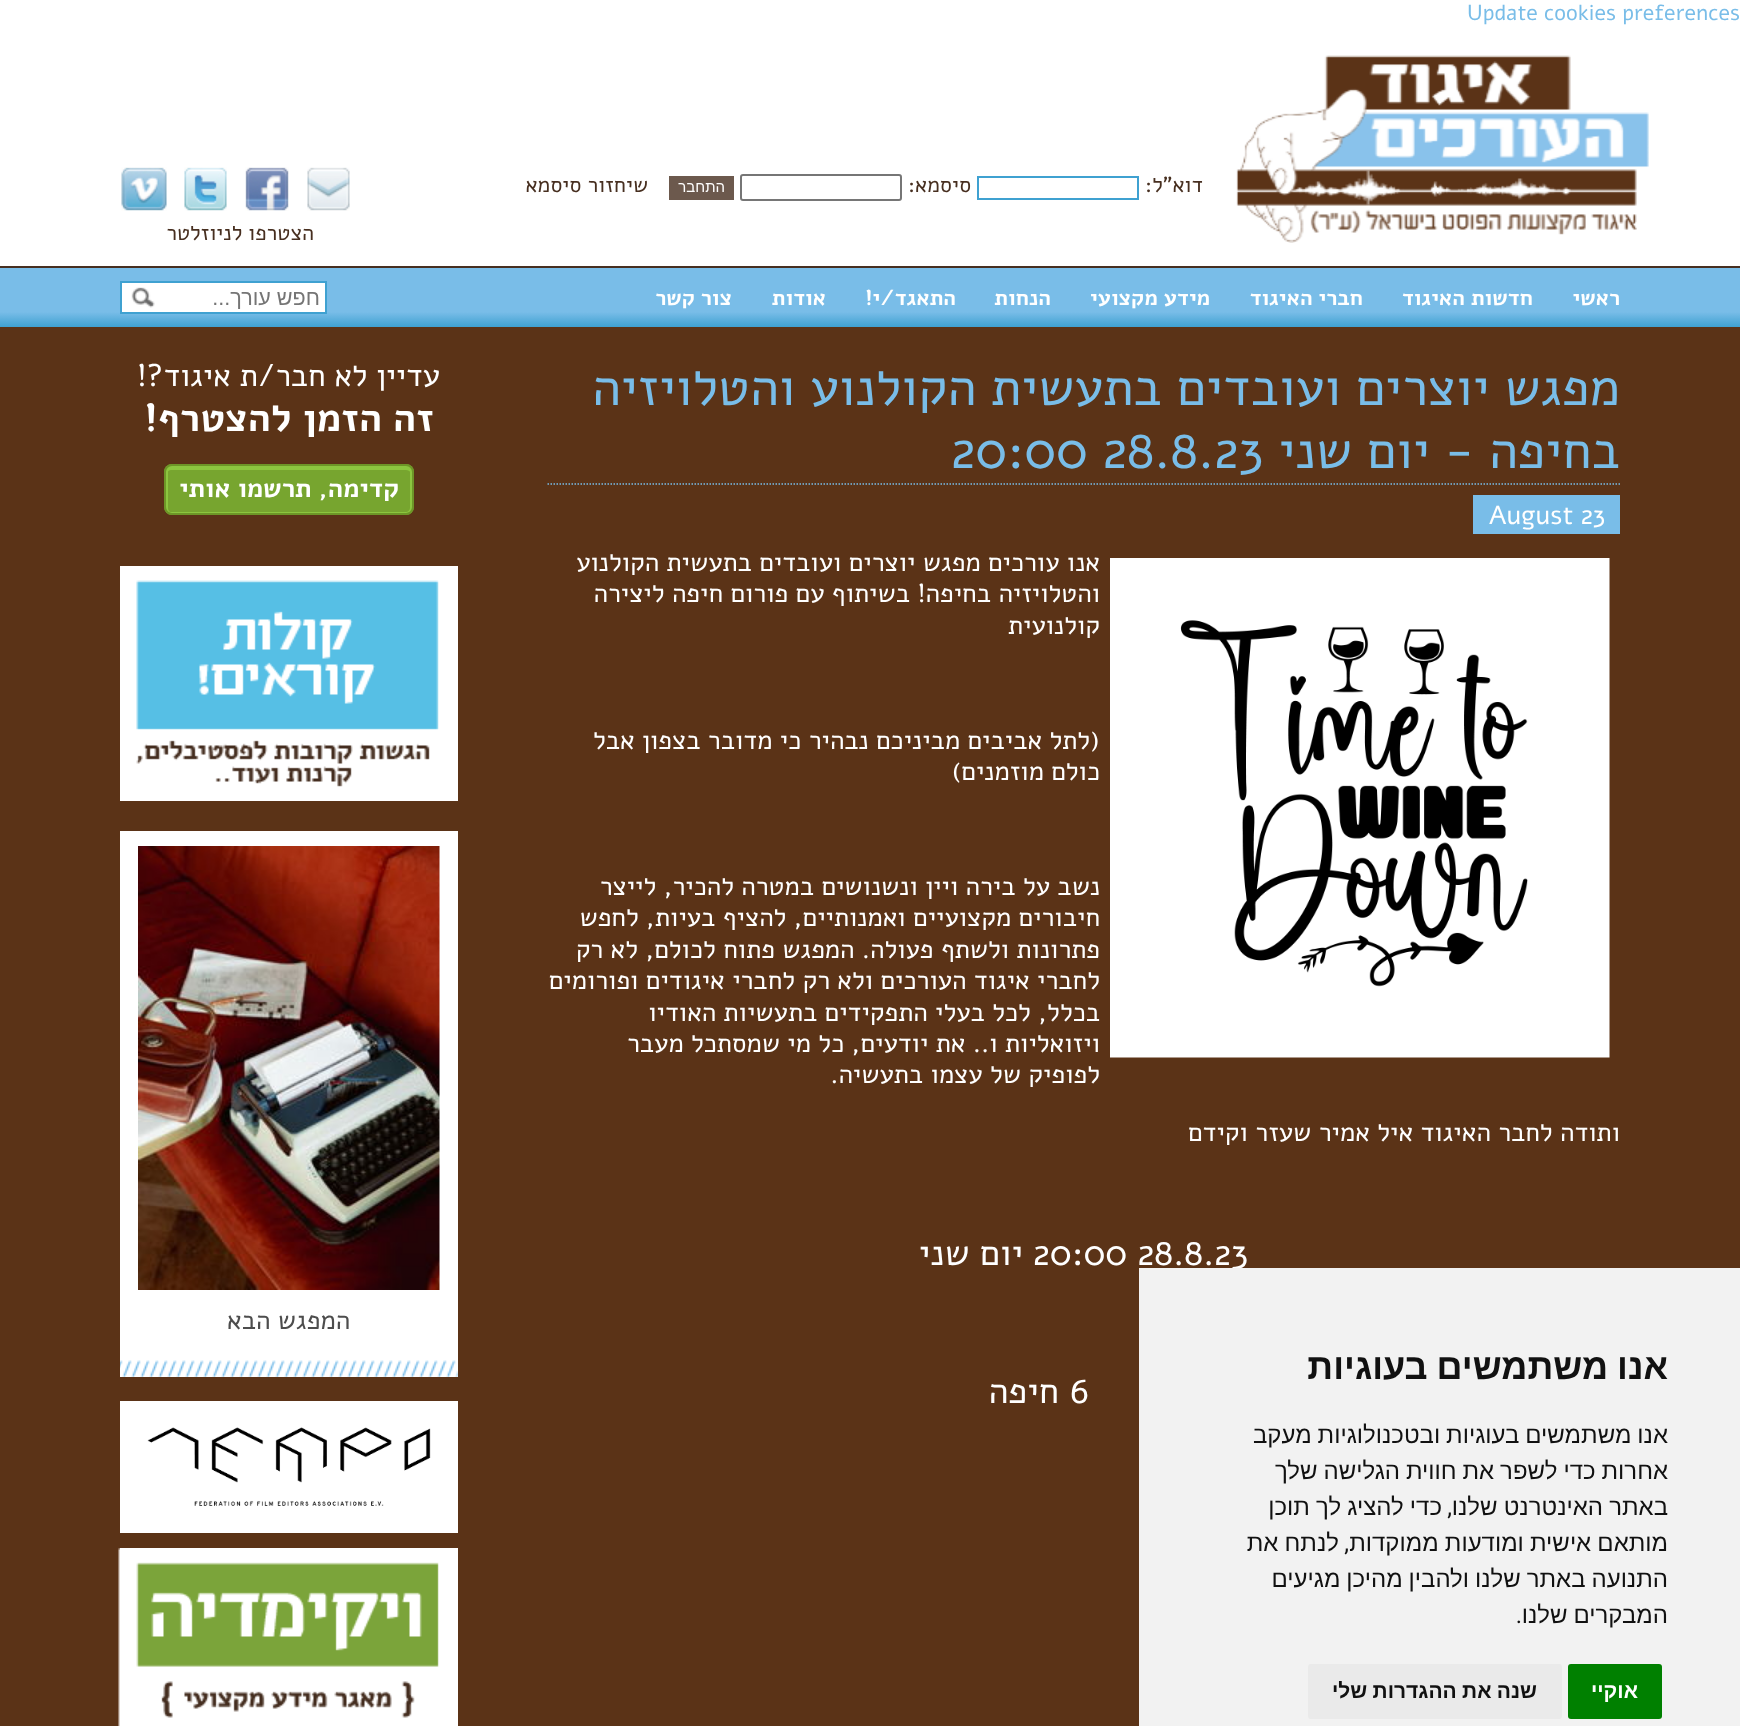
<!DOCTYPE html>
<meta charset="utf-8">
<style>body { margin: 0 } canvas { display: block }</style>
<canvas id="canvas" width="1740" height="1726"></canvas>
<script type="module">
  const canvas = document.getElementById("canvas");
  const g = canvas.getContext("2d");
  g.miterLimit = 4;
  g.fontKerning = "normal";
  function drawText(s, x, y, [font, color]) {
    g.font = font;
    g.fillStyle = color;
    g.fillText(s, x, y);
  }
  function fillBox(x, y, w, h, color) {
    g.fillStyle = color;
    g.fillRect(x, y, w, h);
  }
  function fillRounded(x, y, w, h, r, color) {
    g.fillStyle = color;
    g.beginPath();
    g.roundRect(x, y, w, h, r);
    g.fill();
  }
  async function drawPicture(src, x, y, w, h) {
    const img = new Image();
    img.src = src;
    await img.decode();
    g.drawImage(img, x, y, w, h);
  }
  let gradient;

  const s1 = ["21.6px Alef", "#79BDE8"];
  const s2 = ["21.6px Alef", "#472F20"];
  const s3 = ["15px Liberation Sans", "#FFFFFF"];
  const s4 = ["bold 21.6px Alef", "#FFFFFF"];
  const s5 = ["21.6px Liberation Sans", "#757575"];
  const s6 = ["52.25px Alef", "#79BDE8"];
  const s7 = ["26.1px Alef", "#FFFFFF"];
  const s8 = ["36px Alef", "#FFFFFF"];
  const s9 = ["31.4px Alef", "#FFFFFF"];
  const s10 = ["bold 39.25px Alef", "#FFFFFF"];
  const s11 = ["bold 26.1px Alef", "#FFFFFF"];
  const s12 = ["26.1px Alef", "#4D4D4D"];
  const s13 = ["bold 36px Liberation Sans", "#111111"];
  const s14 = ["24px Liberation Sans", "#111111"];
  const s15 = ["24px Roboto", "#111111"];
  const s16 = ["bold 21px Liberation Sans", "#FFFFFF"];
  const s17 = ["bold 21px Liberation Sans", "#111111"];

  fillBox(0, 0, 1740, 1726, "#FFFFFF");
  drawText("Update cookies preferences", 1467, 20, s1);
  await drawPicture("pic1.png", 1236, 55, 413, 188);
  g.direction = "rtl";
  drawText("דוא\"ל:", 1203, 192, s2);
  g.strokeStyle = "#3FA1D1";
  g.lineWidth = 2;
  g.strokeRect(978, 177, 160, 22);
  drawText("סיסמא:", 971, 192, s2);
  g.beginPath();
  g.roundRect(741, 175, 160, 25, 2);
  g.strokeStyle = "#767676";
  g.stroke();
  fillBox(669, 176, 65, 24, "#6C594D");
  drawText("התחבר", 725, 192, s3);
  drawText("שיחזור סיסמא", 648, 192, s2);
  await drawPicture("pic2.png", 307, 167, 43, 44);
  await drawPicture("pic3.png", 245, 167, 44, 44);
  await drawPicture("pic4.png", 184, 167, 43, 44);
  await drawPicture("pic5.png", 121, 167, 46, 44);
  drawText("הצטרפו לניוזלטר", 314, 240, s2);
  gradient = g.createLinearGradient(870, 267, 870, 327);
  gradient.addColorStop(0.75, "#79BDE8");
  gradient.addColorStop(1, "#3FA1D1");
  g.fillStyle = gradient;
  g.fillRect(0, 268, 1740, 59);
  fillBox(0, 266, 1740, 2, "#472F20");
  drawText("ראשי", 1620, 305, s4);
  drawText("חדשות האיגוד", 1533, 305, s4);
  drawText("חברי האיגוד", 1363, 305, s4);
  drawText("מידע מקצועי", 1210, 305, s4);
  drawText("הנחות", 1051, 305, s4);
  drawText("התאגד/י!", 956, 305, s4);
  drawText("אודות", 826, 305, s4);
  drawText("צור קשר", 732, 305, s4);
  fillBox(122, 283, 203, 29, "#FFFFFF");
  await drawPicture("pic6.png", 131, 287, 24, 21);
  g.strokeStyle = "#3FA1D1";
  g.strokeRect(121, 282, 205, 31);
  drawText("חפש עורך...", 320, 305, s5);
  fillBox(0, 327, 1740, 1399, "#5B3317");
  g.beginPath();
  g.moveTo(547.5, 484);
  g.lineTo(1620, 484);
  g.strokeStyle = "#79BDE8";
  g.lineWidth = 1.5;
  g.setLineDash([1.5, 1.5]);
  g.stroke();
  drawText("מפגש יוצרים ועובדים בתעשית הקולנוע והטלויזיה", 1620, 405, s6);
  drawText("בחיפה - יום שני", 1620, 468, s6);
  g.direction = "ltr";
  drawText("20:00 28.8.23", 951, 468, s6);
  fillBox(1473, 495, 147, 39, "#79BDE8");
  drawText("August 23", 1489, 524, s7);
  await drawPicture("pic7.png", 1110, 558, 500, 500);
  g.direction = "rtl";
  drawText("אנו עורכים מפגש יוצרים ועובדים בתעשית הקולנוע", 1100, 571, s7);
  drawText("והטלויזיה בחיפה! בשיתוף עם פורום חיפה ליצירה", 1100, 602, s7);
  drawText("קולנועית", 1100, 634, s7);
  drawText("(לתל אביבים מביניכם נבהיר כי מדובר בצפון אבל", 1100, 749, s7);
  drawText("כולם מוזמנים)", 1100, 780, s7);
  drawText("נשב על בירה ויין ונשנושים במטרה להכיר, לייצר", 1100, 895, s7);
  drawText("חיבורים מקצועיים ואמנותיים, להציף בעיות, לחפש", 1100, 926, s7);
  drawText("פתרונות ולשתף פעולה. המפגש פתוח לכולם, לא רק", 1100, 958, s7);
  drawText("לחברי איגוד העורכים ולא רק לחברי איגודים ופורומים", 1100, 989, s7);
  drawText("בכלל, לכל בעלי התפקידים בתעשיות האודיו", 1100, 1021, s7);
  drawText("ויזואליות ו.. את יודעים, כל מי שמסתכל מעבר", 1100, 1052, s7);
  drawText("לפופיק של עצמו בתעשיה.", 1100, 1083, s7);
  drawText("ותודה לחבר האיגוד איל אמיר שעזר וקידם", 1620, 1141, s7);
  g.direction = "ltr";
  drawText("20:00 28.8.23", 1033, 1265, s8);
  g.direction = "rtl";
  drawText("יום שני", 1023, 1265, s8);
  g.direction = "ltr";
  drawText("6", 1070, 1403, s8);
  g.direction = "rtl";
  drawText("חיפה", 1059, 1403, s8);
  drawText("עדיין לא חבר/ת איגוד?!", 440, 386, s9);
  drawText("זה הזמן להצטרף!", 434, 431, s10);
  fillRounded(164, 464, 250, 51, 8, "#77A52F");
  g.fillStyle = "#8CC63F";
  g.beginPath();
  g.moveTo(171, 465);
  g.bezierCurveTo(168, 465, 165, 468, 165, 471);
  g.lineTo(165, 507);
  g.bezierCurveTo(165, 510, 168, 513, 171, 513);
  g.lineTo(407, 513);
  g.bezierCurveTo(410, 513, 413, 510, 413, 507);
  g.lineTo(413, 471);
  g.bezierCurveTo(413, 468, 410, 465, 407, 465);
  g.closePath();
  g.moveTo(171, 470);
  g.bezierCurveTo(169, 470, 168, 471, 168, 472);
  g.lineTo(168, 508);
  g.bezierCurveTo(168, 510, 169, 512, 171, 512);
  g.lineTo(406, 512);
  g.bezierCurveTo(408, 512, 410, 510, 410, 508);
  g.lineTo(410, 472);
  g.bezierCurveTo(410, 471, 408, 470, 406, 470);
  g.closePath();
  g.fill("evenodd");
  g.beginPath();
  g.roundRect(165, 465, 248, 49, 7);
  g.strokeStyle = "#6D9627";
  g.lineWidth = 2;
  g.setLineDash([]);
  g.stroke();
  drawText("קדימה, תרשמו אותי", 399, 497, s11);
  fillBox(120, 566, 338, 235, "#FFFFFF");
  await drawPicture("pic8.png", 136, 580, 303, 207);
  fillBox(120, 831, 338, 546, "#FFFFFF");
  await drawPicture("pic9.png", 120, 1360, 338, 17);
  await drawPicture("pic10.png", 138, 846, 302, 444);
  drawText("המפגש הבא", 350, 1329, s12);
  fillBox(120, 1401, 338, 132, "#FFFFFF");
  await drawPicture("pic11.png", 147, 1427, 284, 79);
  fillBox(120, 1548, 338, 178, "#FFFFFF");
  await drawPicture("pic12.png", 118, 1548, 321, 178);
  fillBox(1139, 1268, 601, 458, "#F2F2F2");
  g.wordSpacing = "-1px";
  drawText("אנו משתמשים בעוגיות", 1668, 1379, s13);
  g.wordSpacing = "-0.75px";
  drawText("אנו משתמשים בעוגיות ובטכנולוגיות מעקב", 1668, 1443, s14);
  drawText("אחרות כדי לשפר את חווית הגלישה שלך", 1668, 1479, s14);
  g.wordSpacing = "-0.5px";
  drawText("באתר האינטרנט שלנו", 1668, 1515, s14);
  g.wordSpacing = "0px";
  drawText(",", 1452, 1515, s15);
  g.wordSpacing = "-0.5px";
  drawText("כדי להציג לך תוכן", 1442, 1515, s14);
  drawText("מותאם אישית ומודעות ממוקדות", 1668, 1551, s14);
  g.wordSpacing = "0px";
  drawText(",", 1349, 1551, s15);
  g.wordSpacing = "-0.5px";
  drawText("לנתח את", 1339, 1551, s14);
  g.wordSpacing = "-0.75px";
  drawText("התנועה באתר שלנו ולהבין מהיכן מגיעים", 1668, 1587, s14);
  drawText("המבקרים שלנו", 1668, 1623, s14);
  g.wordSpacing = "0px";
  drawText(".", 1522, 1623, s15);
  fillRounded(1568, 1664, 94, 55, 3, "#008000");
  drawText("אוקיי", 1638, 1698, s16);
  fillRounded(1308, 1664, 254, 55, 3, "#EAEAEA");
  g.wordSpacing = "-0.5px";
  drawText("שנה את ההגדרות שלי", 1537, 1698, s17);
</script>
